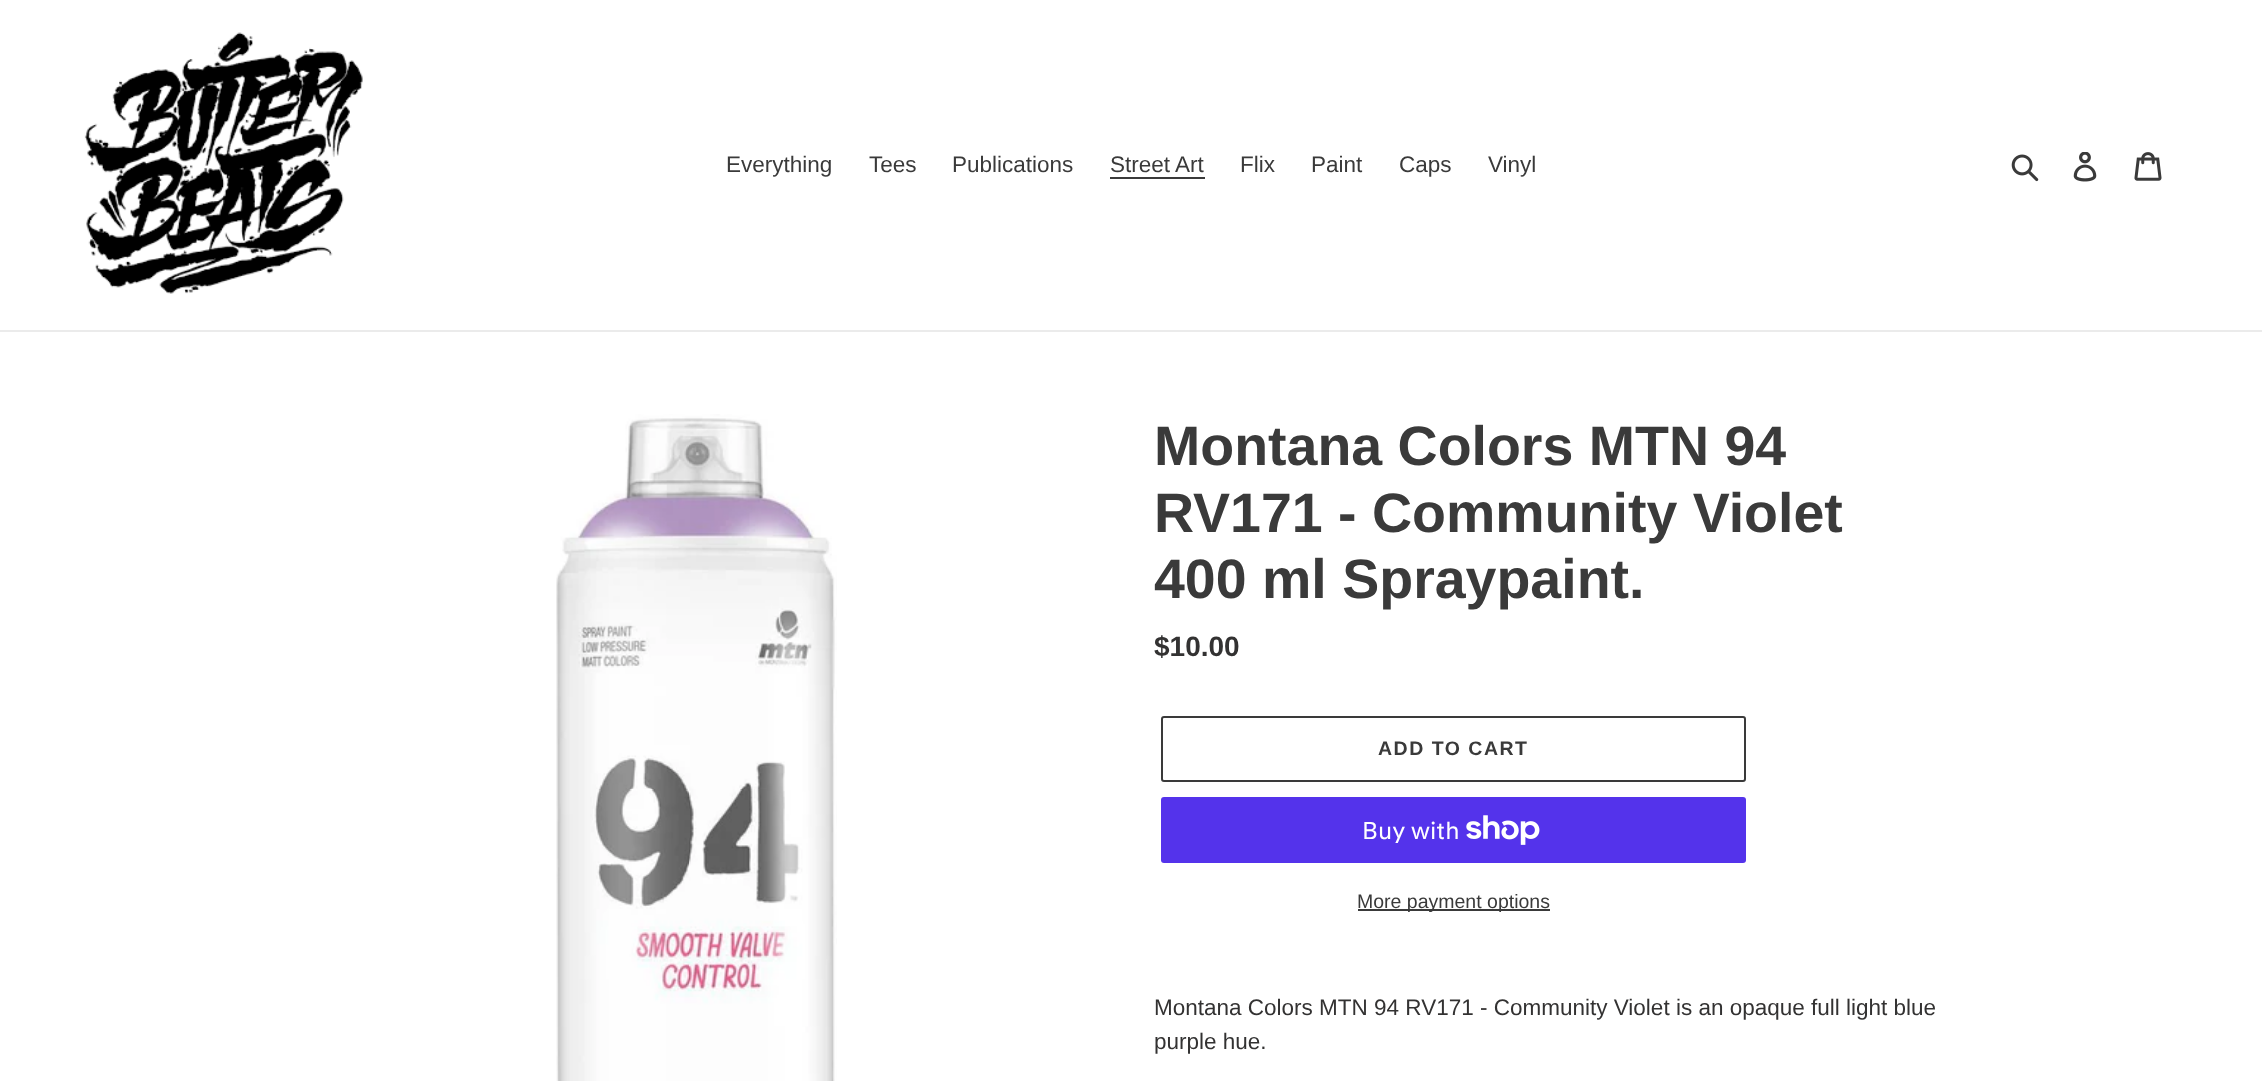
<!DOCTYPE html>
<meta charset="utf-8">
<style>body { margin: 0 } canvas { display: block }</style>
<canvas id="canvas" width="2262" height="1081"></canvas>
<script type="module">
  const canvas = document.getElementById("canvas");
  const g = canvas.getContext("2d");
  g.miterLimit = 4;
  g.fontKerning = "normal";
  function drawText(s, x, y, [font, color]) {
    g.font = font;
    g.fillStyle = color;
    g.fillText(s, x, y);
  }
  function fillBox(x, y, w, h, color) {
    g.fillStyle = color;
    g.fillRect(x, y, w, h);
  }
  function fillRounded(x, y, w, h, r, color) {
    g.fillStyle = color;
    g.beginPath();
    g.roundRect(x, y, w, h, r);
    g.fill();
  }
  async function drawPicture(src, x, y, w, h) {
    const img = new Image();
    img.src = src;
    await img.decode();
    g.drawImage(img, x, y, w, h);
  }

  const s1 = ["22.5px Liberation Sans", "#3A3A3A"];
  const s2 = ["bold 55.5px Liberation Sans", "#3A3A3A"];
  const s3 = ["bold 28px Liberation Sans", "#333232"];
  const s4 = ["bold 19.5px Liberation Sans", "#3A3A3A"];
  const s5 = ["24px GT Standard", "#FFFFFF"];
  const s6 = ["19.5px Liberation Sans", "#3A3A3A"];
  const s7 = ["22.5px Liberation Sans", "#333232"];

  fillBox(0, 0, 2262, 1081, "#FFFFFF");
  fillBox(0, 330, 2262, 2, "#EBEBEB");
  await drawPicture("pic1.png", 84, 32, 279, 262);
  drawText("Everything", 726, 172, s1);
  drawText("Tees", 869, 172, s1);
  drawText("Publications", 952, 172, s1);
  drawText("Street Art", 1110, 172, s1);
  fillBox(1110, 177, 95, 2, "#3A3A3A");
  drawText("Flix", 1240, 172, s1);
  drawText("Paint", 1311, 172, s1);
  drawText("Caps", 1399, 172, s1);
  drawText("Vinyl", 1488, 172, s1);
  await drawPicture("pic2.png", 2011, 154, 28, 28);
  await drawPicture("pic3.png", 2073, 152, 24, 30);
  await drawPicture("pic4.png", 2134, 152, 28, 29);
  await drawPicture("pic5.png", 556, 414, 281, 667);
  drawText("Montana Colors MTN 94", 1154, 465, s2);
  drawText("RV171 - Community Violet", 1154, 532, s2);
  drawText("400 ml Spraypaint.", 1154, 598, s2);
  drawText("$10.00", 1154, 656, s3);
  g.beginPath();
  g.roundRect(1162, 717, 583, 64, 2);
  g.strokeStyle = "#3A3A3A";
  g.lineWidth = 2;
  g.stroke();
  g.letterSpacing = "1.5px";
  drawText("ADD TO CART", 1378, 755, s4);
  fillRounded(1161, 797, 585, 66, 3, "#5433EB");
  g.letterSpacing = "0px";
  drawText("Buy with", 1362, 839, s5);
  await drawPicture("pic6.png", 1466, 815, 74, 30);
  fillBox(1358, 909, 192, 2, "#3A3A3A");
  drawText("More payment options", 1357, 908, s6);
  drawText("Montana Colors MTN 94 RV171 - Community Violet is an opaque full light blue", 1154, 1015, s7);
  drawText("purple hue.", 1154, 1049, s7);
</script>
